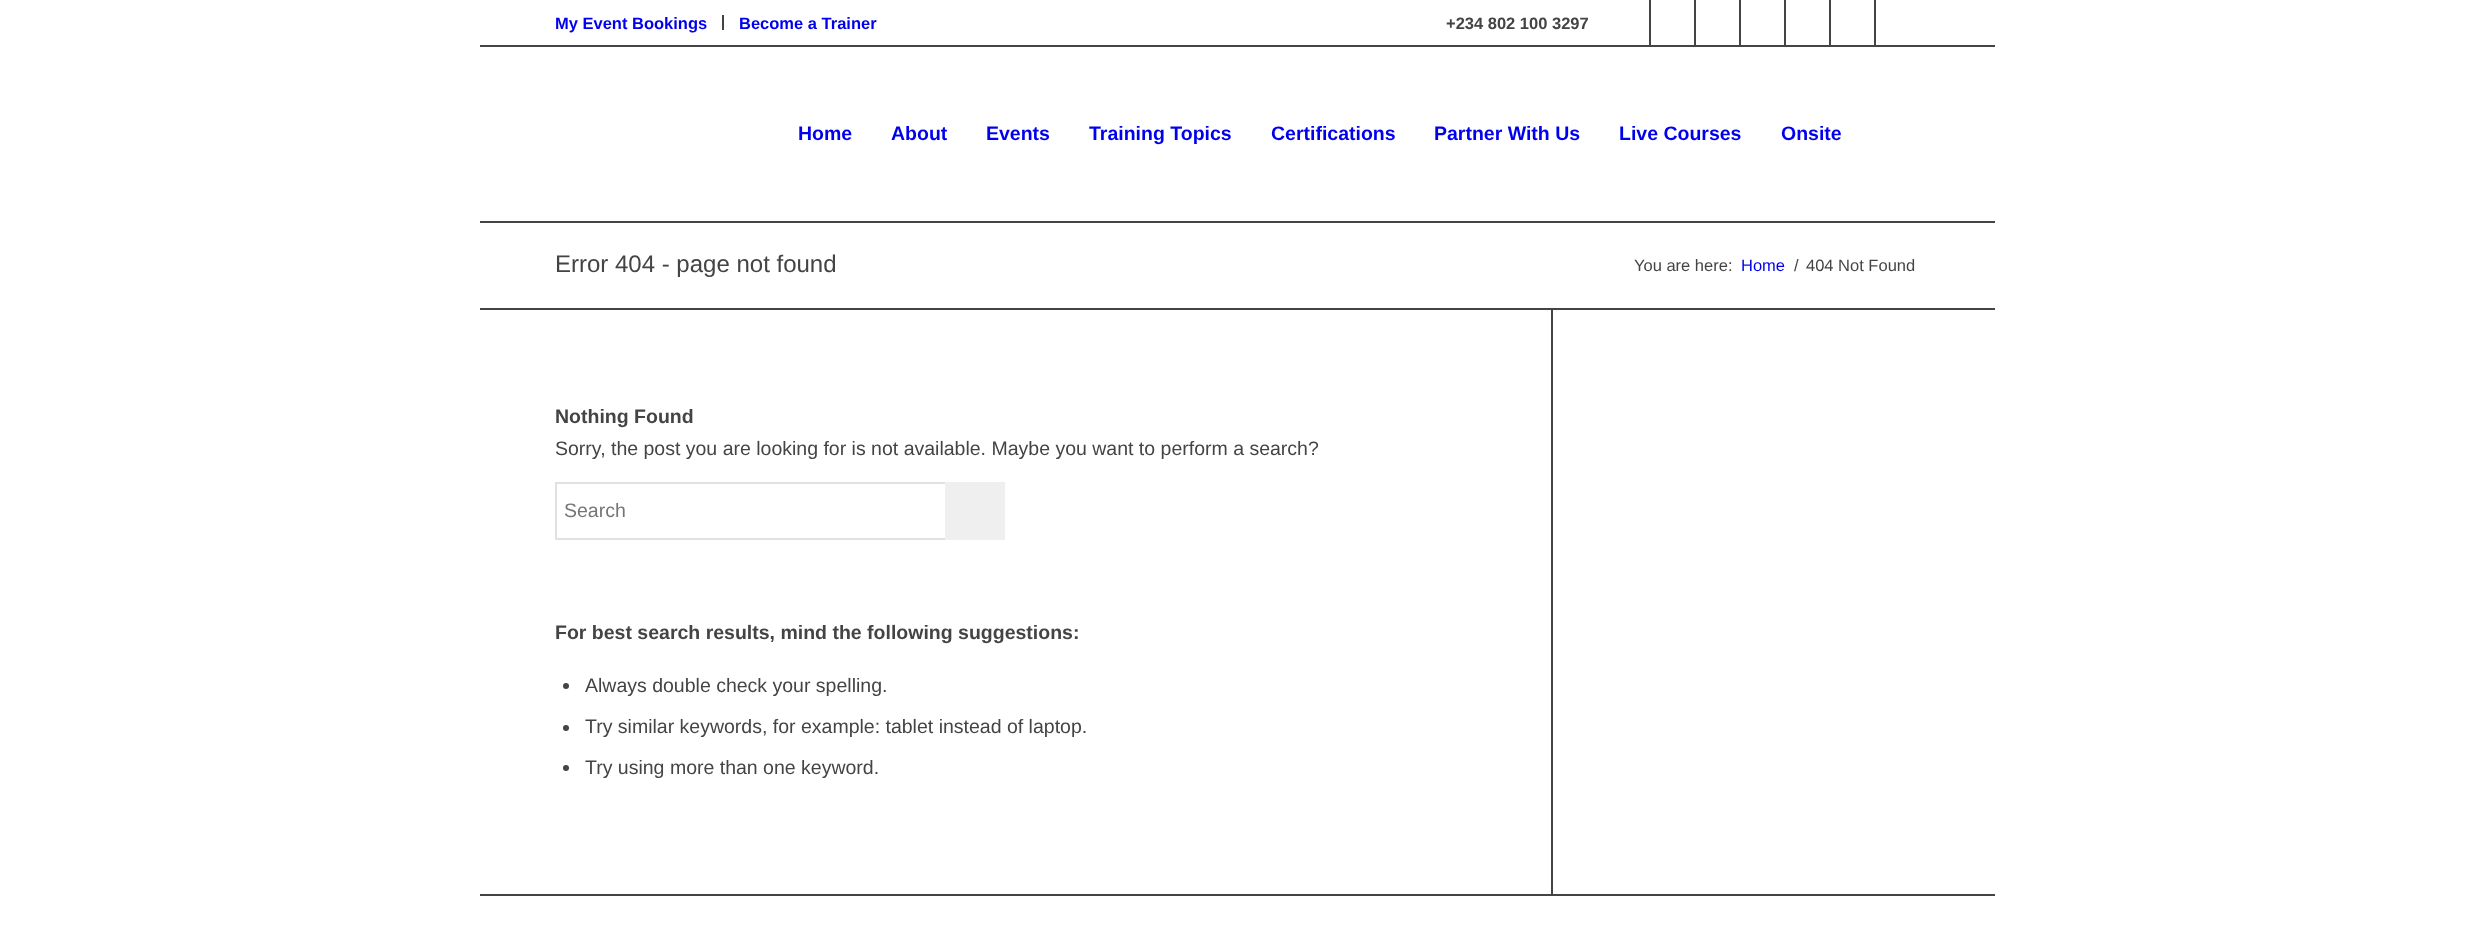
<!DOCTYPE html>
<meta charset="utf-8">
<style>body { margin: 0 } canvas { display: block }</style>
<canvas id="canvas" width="2475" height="950"></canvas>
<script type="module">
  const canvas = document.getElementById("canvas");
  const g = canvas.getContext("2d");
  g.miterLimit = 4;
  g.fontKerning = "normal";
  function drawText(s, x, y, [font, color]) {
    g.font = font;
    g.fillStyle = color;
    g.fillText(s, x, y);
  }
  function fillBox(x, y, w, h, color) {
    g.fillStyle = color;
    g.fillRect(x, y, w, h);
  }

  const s1 = ["bold 16.5px Liberation Sans", "#0000EE"];
  const s2 = ["bold 16.5px Liberation Sans", "#444444"];
  const s3 = ["bold 19.5px Liberation Sans", "#0000EE"];
  const s4 = ["24px Liberation Sans", "#444444"];
  const s5 = ["16.5px Liberation Sans", "#444444"];
  const s6 = ["16.5px Liberation Sans", "#0000EE"];
  const s7 = ["bold 19.5px Liberation Sans", "#444444"];
  const s8 = ["19.5px Liberation Sans", "#444444"];
  const s9 = ["19.5px Liberation Sans", "#757575"];

  fillBox(0, 0, 2475, 950, "#FFFFFF");
  fillBox(722, 15, 2, 15, "#444444");
  drawText("My Event Bookings", 555, 29, s1);
  drawText("Become a Trainer", 739, 29, s1);
  drawText("+234 802 100 3297", 1446, 29, s2);
  fillBox(1649, 0, 2, 45, "#444444");
  fillBox(1694, 0, 2, 45, "#444444");
  fillBox(1739, 0, 2, 45, "#444444");
  fillBox(1784, 0, 2, 45, "#444444");
  fillBox(1829, 0, 2, 45, "#444444");
  fillBox(1874, 0, 2, 45, "#444444");
  fillBox(480, 45, 1515, 2, "#444444");
  drawText("Home", 798, 140, s3);
  drawText("About", 891, 140, s3);
  drawText("Events", 986, 140, s3);
  drawText("Training Topics", 1089, 140, s3);
  drawText("Certifications", 1271, 140, s3);
  drawText("Partner With Us", 1434, 140, s3);
  drawText("Live Courses", 1619, 140, s3);
  drawText("Onsite", 1781, 140, s3);
  fillBox(480, 221, 1515, 2, "#444444");
  drawText("Error 404 - page not found", 555, 272, s4);
  drawText("You are here:", 1634, 271, s5);
  drawText("Home", 1741, 271, s6);
  drawText("/", 1794, 271, s5);
  drawText("404 Not Found", 1806, 271, s5);
  fillBox(480, 308, 1515, 2, "#444444");
  fillBox(1551, 309, 2, 585, "#444444");
  drawText("Nothing Found", 555, 423, s7);
  drawText("Sorry, the post you are looking for is not available. Maybe you want to perform a search?", 555, 455, s8);
  g.strokeStyle = "#E1E1E1";
  g.lineWidth = 2;
  g.strokeRect(556, 483, 448, 56);
  drawText("Search", 564, 517, s9);
  fillBox(945, 482, 60, 58, "#EFEFEF");
  drawText("For best search results, mind the following suggestions:", 555, 639, s7);
  g.beginPath();
  g.arc(566, 686, 3, 0, Math.PI * 2);
  g.fill();
  drawText("Always double check your spelling.", 585, 692, s8);
  g.beginPath();
  g.arc(566, 728, 3, 0, Math.PI * 2);
  g.fill();
  drawText("Try similar keywords, for example: tablet instead of laptop.", 585, 733, s8);
  g.beginPath();
  g.arc(566, 768, 3, 0, Math.PI * 2);
  g.fill();
  drawText("Try using more than one keyword.", 585, 774, s8);
  fillBox(480, 894, 1515, 2, "#444444");
</script>
